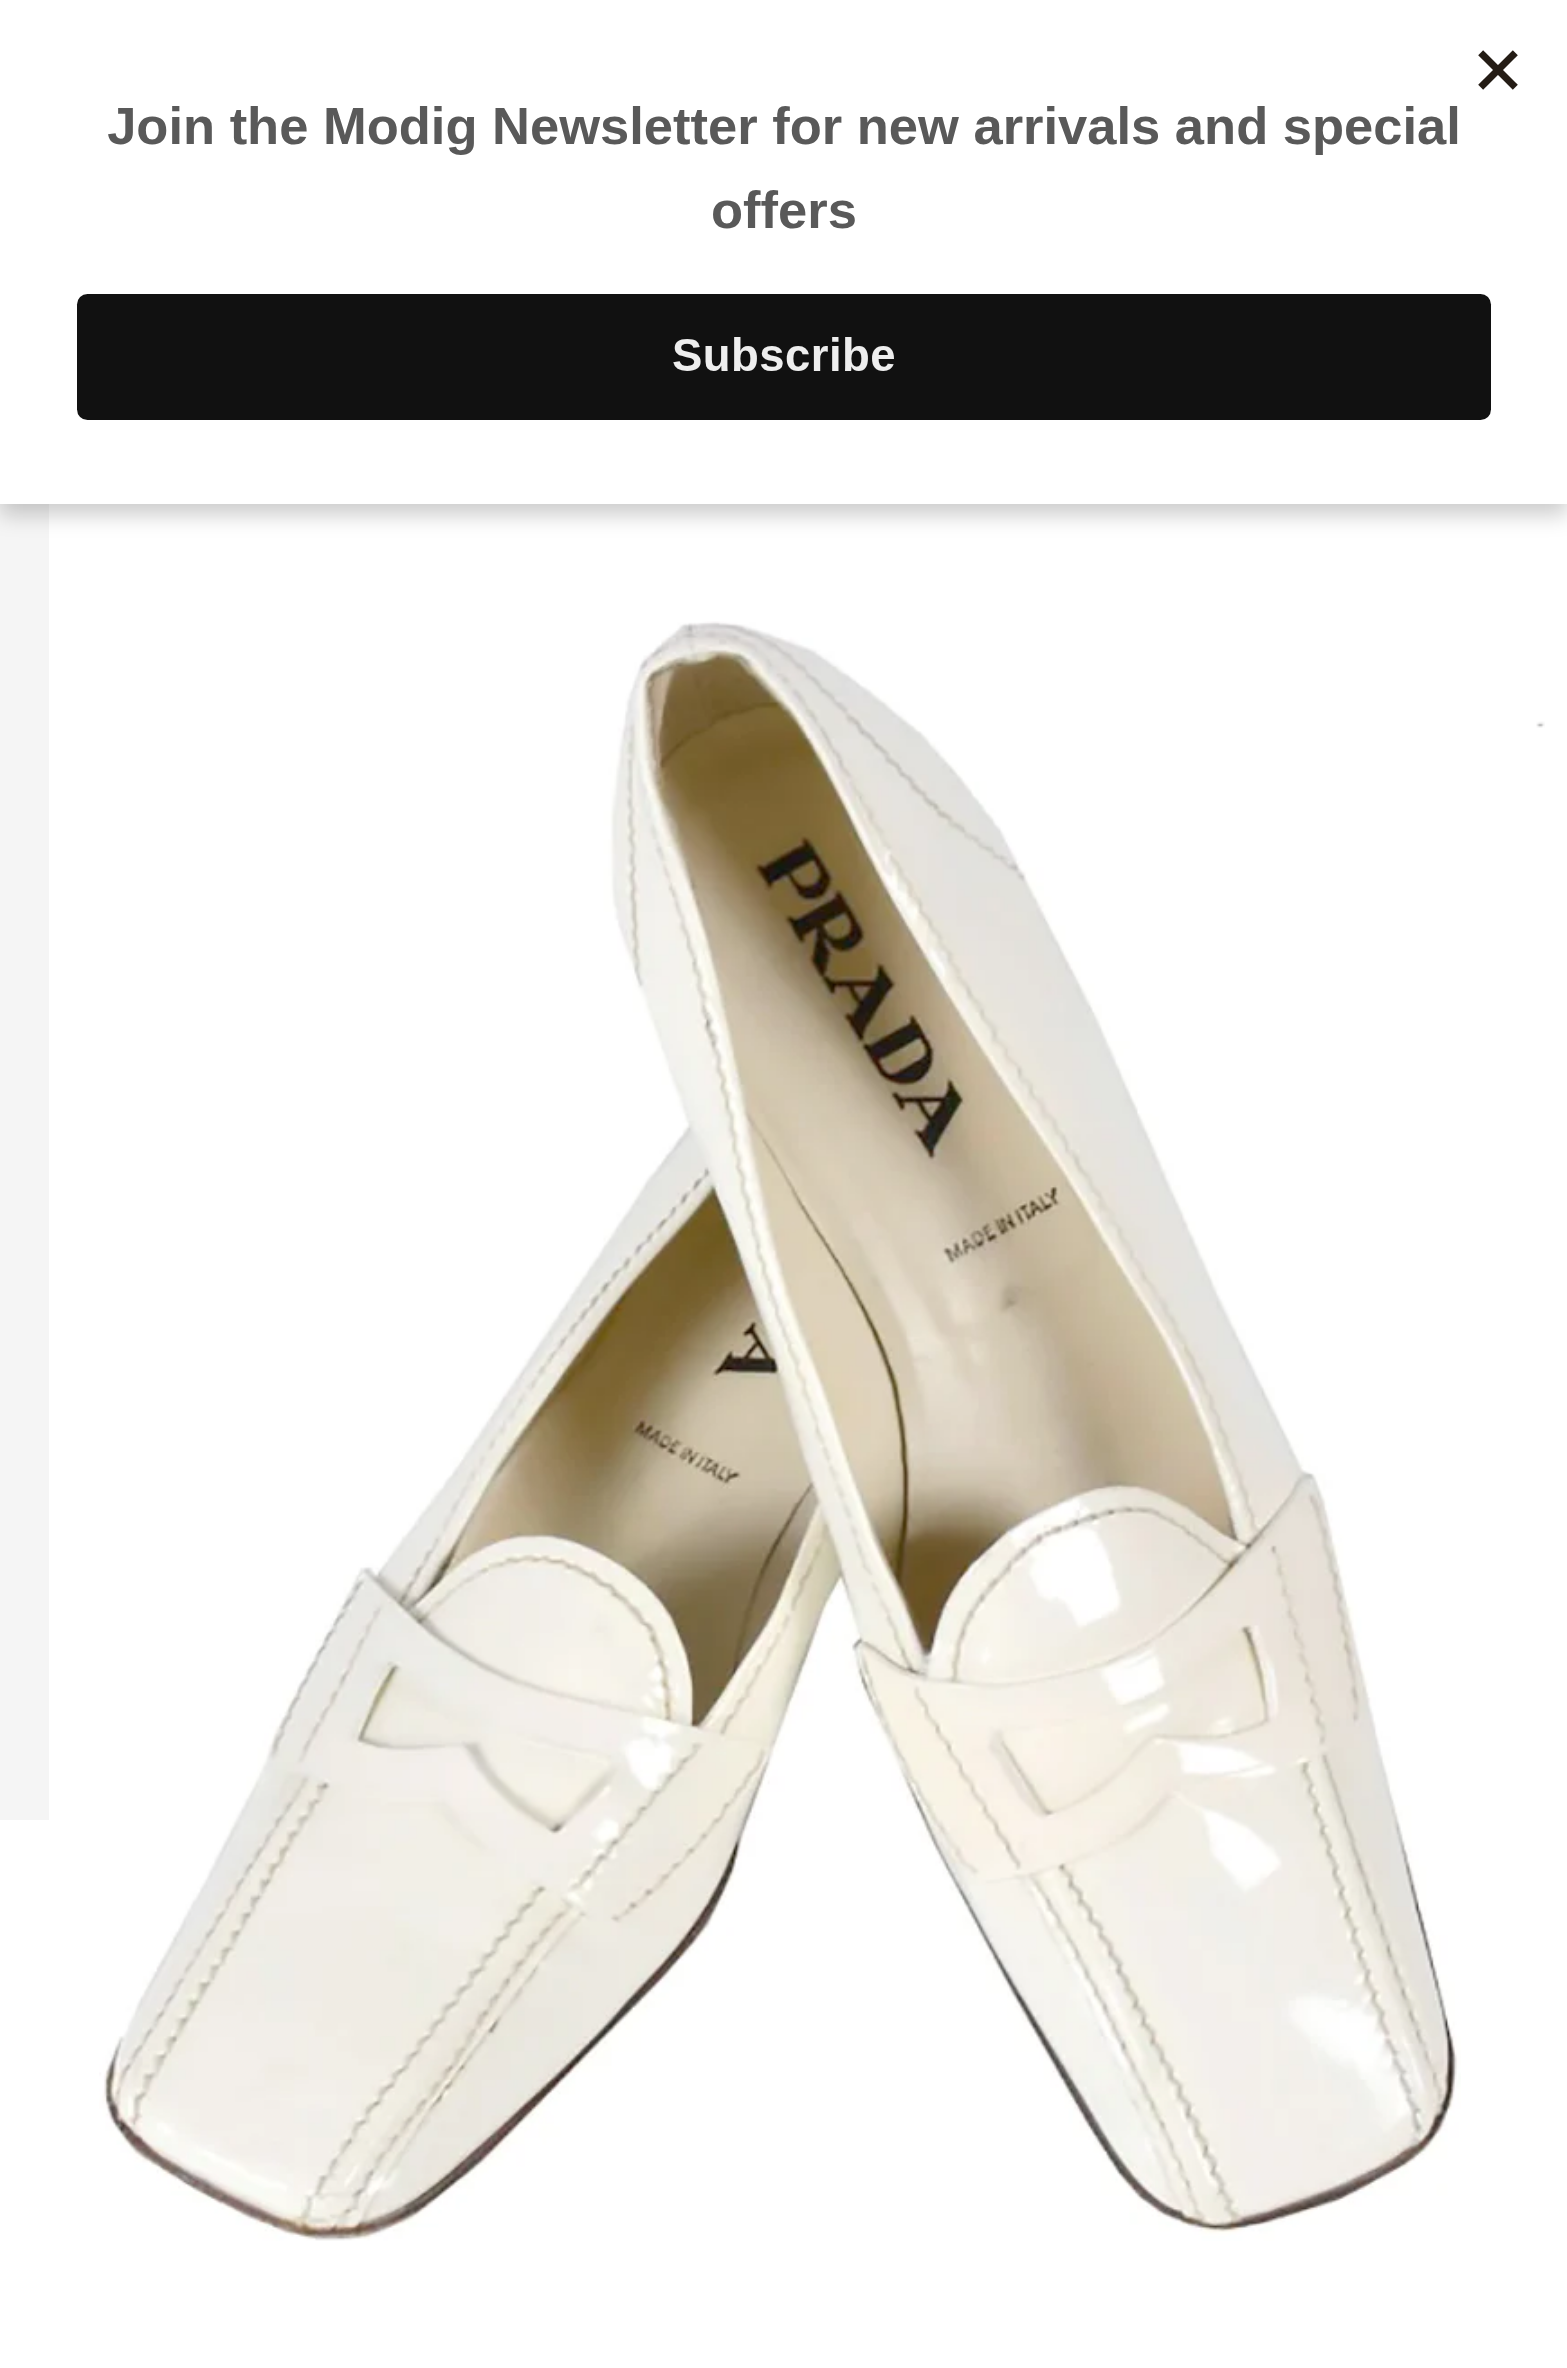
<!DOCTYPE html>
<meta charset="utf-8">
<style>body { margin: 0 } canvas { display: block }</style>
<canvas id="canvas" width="1567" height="2368"></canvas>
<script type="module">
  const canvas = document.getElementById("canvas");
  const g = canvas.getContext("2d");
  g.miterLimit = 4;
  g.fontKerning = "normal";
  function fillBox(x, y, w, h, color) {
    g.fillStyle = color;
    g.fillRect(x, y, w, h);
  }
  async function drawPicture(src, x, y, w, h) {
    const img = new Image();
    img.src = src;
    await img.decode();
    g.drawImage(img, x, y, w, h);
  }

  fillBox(0, 0, 1567, 2368, "#FFFFFF");
  fillBox(0, 504, 49, 1316, "#F5F5F5");
  g.fillStyle = "rgba(0, 0, 0, 0.2)";
  g.filter = "blur(10.5px)";
  g.beginPath();
  g.rect(0, 11, 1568, 504);
  g.fill();
  g.filter = "none";
  fillBox(0, 0, 1567, 504, "#FFFFFF");
  await drawPicture("pic1.png", 76, 50, 1442, 370);
  await drawPicture("pic2.png", 99, 621, 1362, 1620);
  await drawPicture("pic3.png", 1536, 721, 9, 7);
</script>
